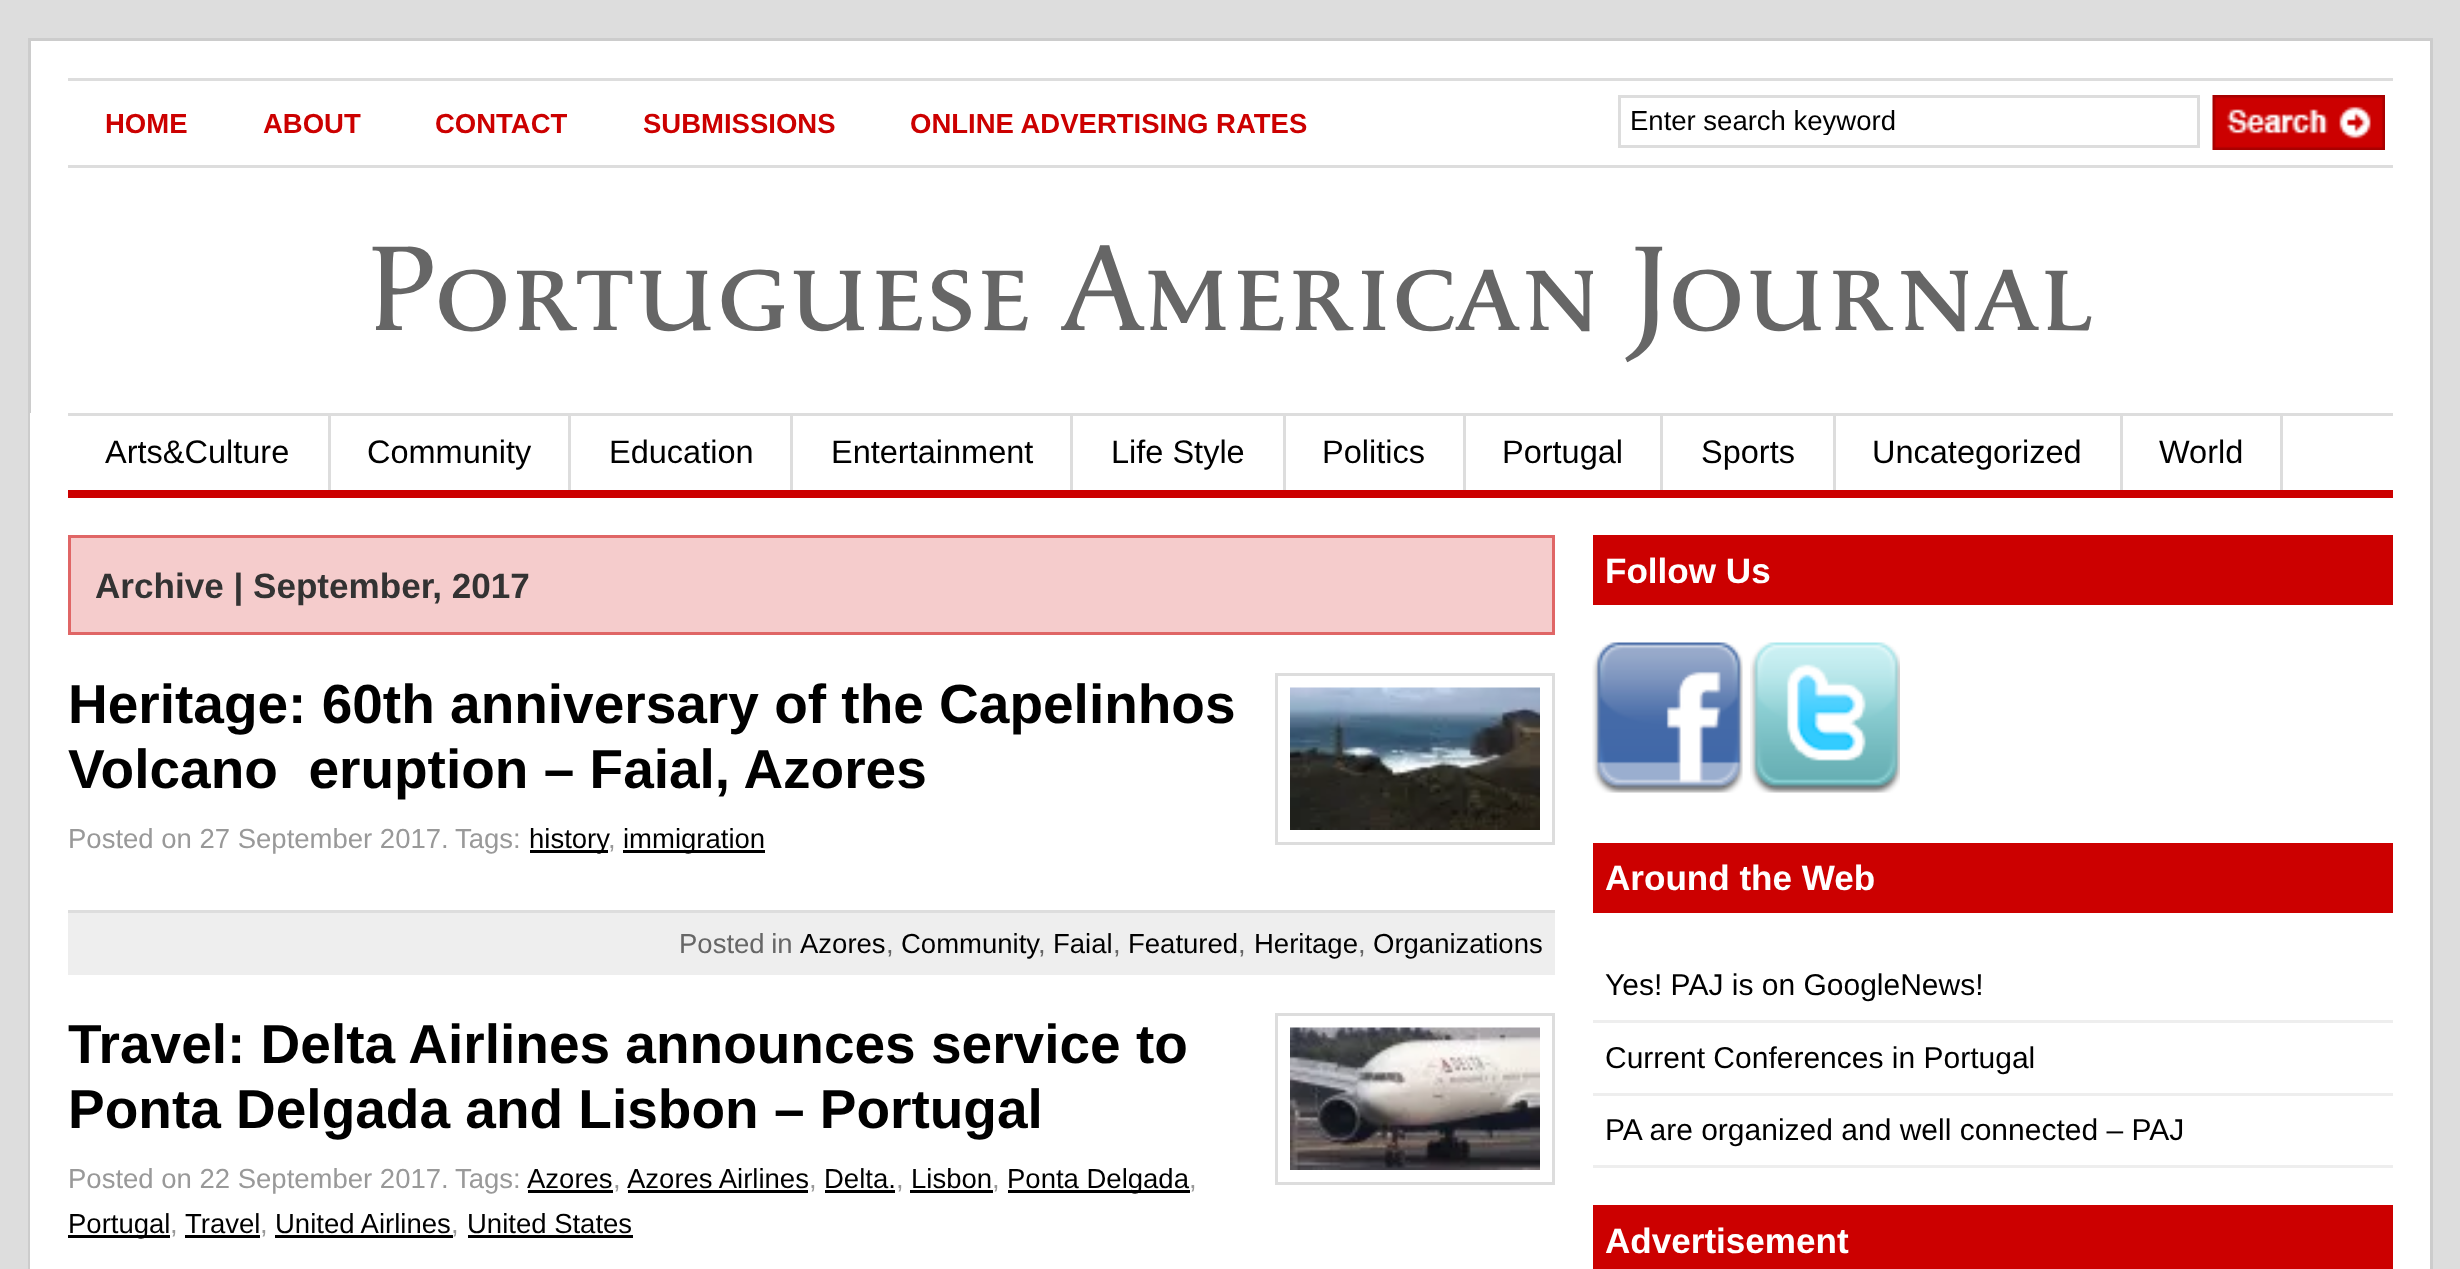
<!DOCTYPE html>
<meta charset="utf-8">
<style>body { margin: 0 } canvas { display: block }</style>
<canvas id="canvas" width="2460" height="1269"></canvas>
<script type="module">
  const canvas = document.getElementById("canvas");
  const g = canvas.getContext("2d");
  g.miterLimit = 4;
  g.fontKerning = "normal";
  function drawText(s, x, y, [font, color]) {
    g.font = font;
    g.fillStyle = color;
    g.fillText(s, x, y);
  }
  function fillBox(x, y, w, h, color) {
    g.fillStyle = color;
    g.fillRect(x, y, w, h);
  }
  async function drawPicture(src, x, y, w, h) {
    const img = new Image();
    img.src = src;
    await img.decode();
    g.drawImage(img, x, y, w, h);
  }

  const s1 = ["bold 27.5px Liberation Sans", "#CC0000"];
  const s2 = ["27.5px Liberation Sans", "#000000"];
  const s3 = ["500 125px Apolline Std", "#666666"];
  const s4 = ["32.5px Liberation Sans", "#000000"];
  const s5 = ["bold 35.1px Liberation Sans", "#333333"];
  const s6 = ["bold 55px Liberation Sans", "#000000"];
  const s7 = ["27.5px Liberation Sans", "#999999"];
  const s8 = ["27.5px Liberation Sans", "#666666"];
  const s9 = ["bold 35.1px Liberation Sans", "#FFFFFF"];
  const s10 = ["30px Liberation Sans", "#000000"];

  fillBox(0, 0, 2460, 1269, "#DDDDDD");
  fillBox(31, 41, 2399, 372, "#FFFFFF");
  g.strokeStyle = "#CCCCCC";
  g.lineWidth = 3;
  g.strokeRect(29.5, 39.5, 2402, 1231);
  fillBox(68, 78, 2325, 3, "#DDDDDD");
  fillBox(68, 165, 2325, 3, "#DDDDDD");
  drawText("HOME", 105, 133, s1);
  drawText("ABOUT", 263, 133, s1);
  drawText("CONTACT", 435, 133, s1);
  drawText("SUBMISSIONS", 643, 133, s1);
  drawText("ONLINE ADVERTISING RATES", 910, 133, s1);
  g.strokeStyle = "#DDDDDD";
  g.strokeRect(1619.5, 96.5, 579, 50);
  g.save();
  g.beginPath();
  g.rect(1630, 105, 558, 30);
  g.clip();
  drawText("Enter search keyword", 1630, 130, s2);
  g.restore();
  await drawPicture("pic1.png", 2212, 95, 173, 55);
  drawText("Portuguese American Journal", 367, 330, s3);
  fillBox(30, 413, 2400, 856, "#FFFFFF");
  fillBox(68, 413, 2325, 3, "#DDDDDD");
  fillBox(68, 490, 2325, 8, "#CC0000");
  fillBox(328, 415, 3, 75, "#DDDDDD");
  drawText("Arts&Culture", 105, 463, s4);
  fillBox(568, 415, 3, 75, "#DDDDDD");
  drawText("Community", 367, 463, s4);
  fillBox(790, 415, 3, 75, "#DDDDDD");
  drawText("Education", 609, 463, s4);
  fillBox(1070, 415, 3, 75, "#DDDDDD");
  drawText("Entertainment", 831, 463, s4);
  fillBox(1283, 415, 3, 75, "#DDDDDD");
  drawText("Life Style", 1111, 463, s4);
  fillBox(1463, 415, 3, 75, "#DDDDDD");
  drawText("Politics", 1322, 463, s4);
  fillBox(1660, 415, 3, 75, "#DDDDDD");
  drawText("Portugal", 1502, 463, s4);
  fillBox(1833, 415, 3, 75, "#DDDDDD");
  drawText("Sports", 1701, 463, s4);
  fillBox(2120, 415, 3, 75, "#DDDDDD");
  drawText("Uncategorized", 1872, 463, s4);
  fillBox(2280, 415, 3, 75, "#DDDDDD");
  drawText("World", 2159, 463, s4);
  g.fillStyle = "#F5CCCC";
  g.beginPath();
  g.rect(69.5, 536.5, 1484, 97);
  g.fill();
  g.strokeStyle = "#E06666";
  g.stroke();
  drawText("Archive | September, 2017", 95, 598, s5);
  drawText("Heritage: 60th anniversary of the Capelinhos", 68, 723, s6);
  drawText("Volcano  eruption – Faial, Azores", 68, 788, s6);
  g.strokeStyle = "#DDDDDD";
  g.strokeRect(1276.5, 674.5, 277, 169);
  await drawPicture("pic2.png", 1290, 687, 250, 143);
  drawText("Posted on 27 September 2017.", 68, 848, s7);
  drawText("Tags:", 455, 848, s7);
  fillBox(530, 850, 78, 3, "#000000");
  drawText("history", 529, 848, s2);
  drawText(",", 608, 848, s7);
  fillBox(623, 850, 142, 3, "#000000");
  drawText("immigration", 623, 848, s2);
  fillBox(68, 913, 1487, 62, "#EEEEEE");
  fillBox(68, 910, 1487, 3, "#DDDDDD");
  g.wordSpacing = "-1px";
  drawText("Posted in", 679, 953, s8);
  g.wordSpacing = "0px";
  drawText("Azores", 800, 953, s2);
  drawText(",", 886, 953, s8);
  drawText("Community", 901, 953, s2);
  drawText(",", 1038, 953, s8);
  drawText("Faial", 1053, 953, s2);
  drawText(",", 1113, 953, s8);
  drawText("Featured", 1128, 953, s2);
  drawText(",", 1238, 953, s8);
  drawText("Heritage", 1254, 953, s2);
  drawText(",", 1358, 953, s8);
  drawText("Organizations", 1373, 953, s2);
  drawText("Travel: Delta Airlines announces service to", 68, 1063, s6);
  drawText("Ponta Delgada and Lisbon – Portugal", 68, 1128, s6);
  g.strokeRect(1276.5, 1014.5, 277, 169);
  await drawPicture("pic3.png", 1290, 1027, 250, 143);
  drawText("Posted on 22 September 2017.", 68, 1188, s7);
  drawText("Tags:", 455, 1188, s7);
  drawText("Azores", 527, 1188, s2);
  drawText(",", 613, 1188, s7);
  fillBox(528, 1190, 85, 3, "#000000");
  drawText("Azores Airlines", 627, 1188, s2);
  drawText(",", 809, 1188, s7);
  fillBox(628, 1190, 180, 3, "#000000");
  drawText("Delta.", 824, 1188, s2);
  drawText(",", 896, 1188, s7);
  fillBox(825, 1190, 70, 3, "#000000");
  drawText("Lisbon", 911, 1188, s2);
  drawText(",", 992, 1188, s7);
  fillBox(910, 1190, 83, 3, "#000000");
  fillBox(1008, 1190, 182, 3, "#000000");
  drawText("Ponta Delgada", 1007, 1188, s2);
  drawText(",", 1189, 1188, s7);
  fillBox(68, 1235, 102, 3, "#000000");
  drawText("Portugal", 68, 1233, s2);
  drawText(",", 170, 1233, s7);
  drawText("Travel", 185, 1233, s2);
  drawText(",", 260, 1233, s7);
  fillBox(185, 1235, 75, 3, "#000000");
  drawText("United Airlines", 275, 1233, s2);
  drawText(",", 451, 1233, s7);
  fillBox(275, 1235, 178, 3, "#000000");
  fillBox(468, 1235, 165, 3, "#000000");
  drawText("United States", 467, 1233, s2);
  fillBox(1593, 535, 800, 70, "#CC0000");
  drawText("Follow Us", 1605, 583, s9);
  await drawPicture("pic4.png", 1592, 642, 151, 151);
  await drawPicture("pic5.png", 1750, 642, 150, 151);
  fillBox(1593, 843, 800, 70, "#CC0000");
  drawText("Around the Web", 1605, 890, s9);
  fillBox(1593, 1020, 800, 3, "#EEEEEE");
  drawText("Yes! PAJ is on GoogleNews!", 1605, 995, s10);
  fillBox(1593, 1093, 800, 3, "#EEEEEE");
  drawText("Current Conferences in Portugal", 1605, 1068, s10);
  fillBox(1593, 1165, 800, 3, "#EEEEEE");
  drawText("PA are organized and well connected – PAJ", 1605, 1140, s10);
  fillBox(1593, 1205, 800, 64, "#CC0000");
  drawText("Advertisement", 1605, 1253, s9);
</script>
